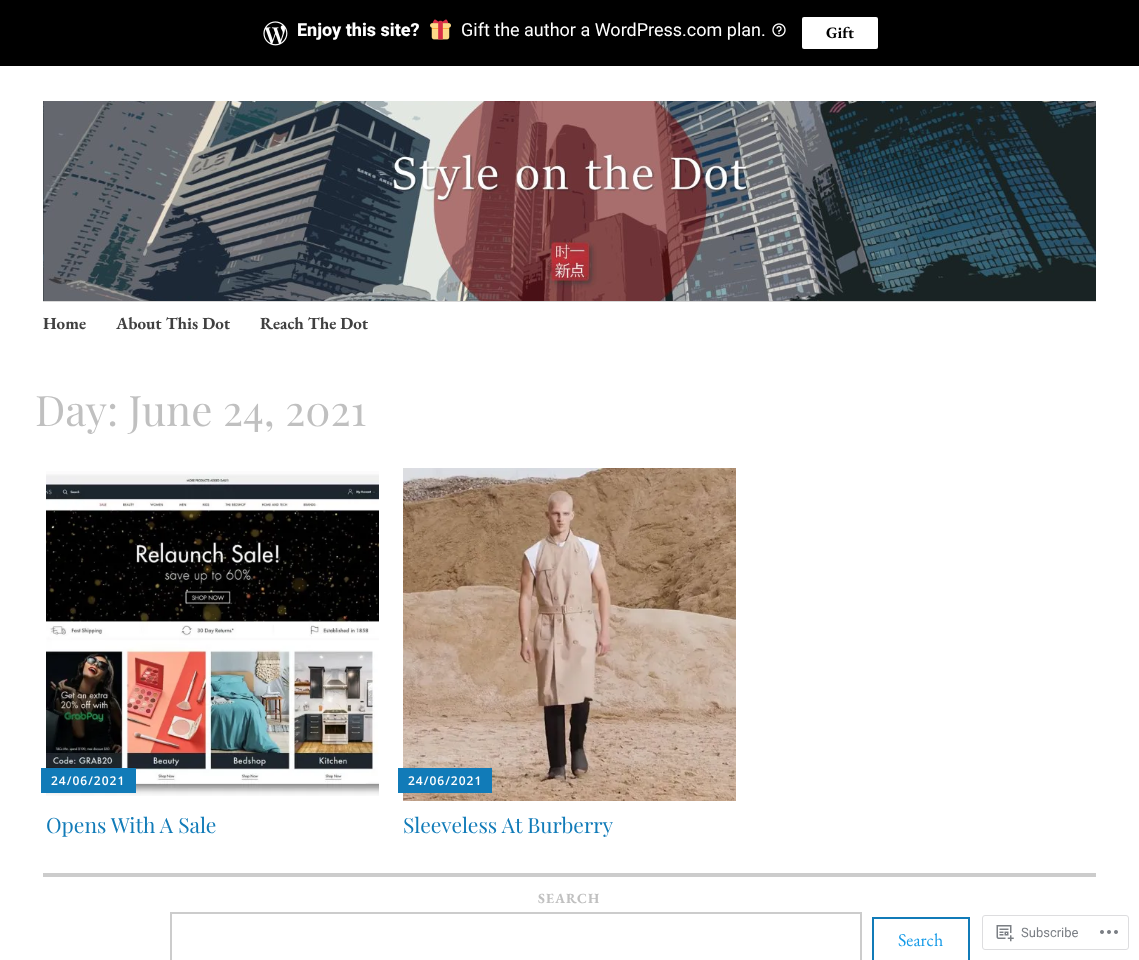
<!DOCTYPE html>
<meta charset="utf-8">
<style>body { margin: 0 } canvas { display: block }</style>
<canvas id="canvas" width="1139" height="960"></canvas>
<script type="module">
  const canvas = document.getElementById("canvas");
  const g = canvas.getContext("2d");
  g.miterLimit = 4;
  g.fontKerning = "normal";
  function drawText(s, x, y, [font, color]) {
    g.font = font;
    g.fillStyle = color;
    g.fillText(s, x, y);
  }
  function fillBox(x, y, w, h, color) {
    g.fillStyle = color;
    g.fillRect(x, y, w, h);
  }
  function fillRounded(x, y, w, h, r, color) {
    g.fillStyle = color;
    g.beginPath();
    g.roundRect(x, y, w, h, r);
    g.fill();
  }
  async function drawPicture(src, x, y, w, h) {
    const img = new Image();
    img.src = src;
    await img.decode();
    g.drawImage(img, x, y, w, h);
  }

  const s1 = ["800 18px Roboto", "#FFFFFF"];
  const s2 = ["18px Roboto", "#FFFFFF"];
  const s3 = ["bold 16px EB Garamond", "#000000"];
  const s4 = ["bold 17px EB Garamond", "#404040"];
  const s5 = ["42px Playfair Display", "#C0C0C0"];
  const s6 = ["600 12px Open Sans", "#FFFFFF"];
  const s7 = ["21px Playfair Display", "#117BB8"];
  const s8 = ["bold 14px EB Garamond", "#C0C0C0"];
  const s9 = ["18px EB Garamond", "#159AE7"];
  const s10 = ["13px Roboto", "#7B7F85"];

  fillBox(0, 0, 1139, 960, "#FFFFFF");
  fillBox(0, 0, 1139, 66, "#000000");
  await drawPicture("pic1.png", 263, 21, 25, 25);
  drawText("Enjoy this site?", 297, 36, s1);
  await drawPicture("pic2.png", 430, 19, 21, 21);
  drawText("Gift the author a WordPress.com plan.", 461, 36, s2);
  await drawPicture("pic3.png", 772, 23, 14, 14);
  fillRounded(802, 17, 76, 32, 2, "#FFFFFF");
  drawText("Gift", 826, 38, s3);
  await drawPicture("pic4.png", 43, 101, 1053, 200);
  fillBox(43, 301, 1053, 1, "#D9D9D9");
  drawText("Home", 43, 329, s4);
  drawText("About This Dot", 116, 329, s4);
  drawText("Reach The Dot", 260, 329, s4);
  drawText("Day: June 24, 2021", 35, 426, s5);
  await drawPicture("pic5.png", 46, 471, 333, 325);
  fillBox(41, 768, 95, 25, "#117BB8");
  g.letterSpacing = "1px";
  drawText("24/06/2021", 51, 785, s6);
  g.letterSpacing = "0px";
  drawText("Opens With A Sale", 46, 833, s7);
  await drawPicture("pic6.png", 403, 468, 333, 333);
  fillBox(398, 768, 94, 25, "#117BB8");
  g.letterSpacing = "1px";
  drawText("24/06/2021", 408, 785, s6);
  g.letterSpacing = "0px";
  drawText("Sleeveless At Burberry", 403, 833, s7);
  fillBox(43, 873, 1053, 4, "#CCCCCC");
  g.letterSpacing = "1px";
  drawText("SEARCH", 538, 903, s8);
  g.strokeStyle = "#CCCCCC";
  g.lineWidth = 2;
  g.strokeRect(171, 913, 690, 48);
  g.strokeStyle = "#117BB8";
  g.strokeRect(873, 918, 96, 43);
  g.letterSpacing = "0px";
  drawText("Search", 898, 946, s9);
  g.beginPath();
  g.roundRect(982.5, 915.5, 146, 34, 2.5);
  g.strokeStyle = "#DDDDDF";
  g.lineWidth = 1;
  g.stroke();
  await drawPicture("pic7.png", 996, 925, 18, 17);
  drawText("Subscribe", 1021, 937, s10);
  await drawPicture("pic8.png", 1100, 930, 18, 4);
</script>
